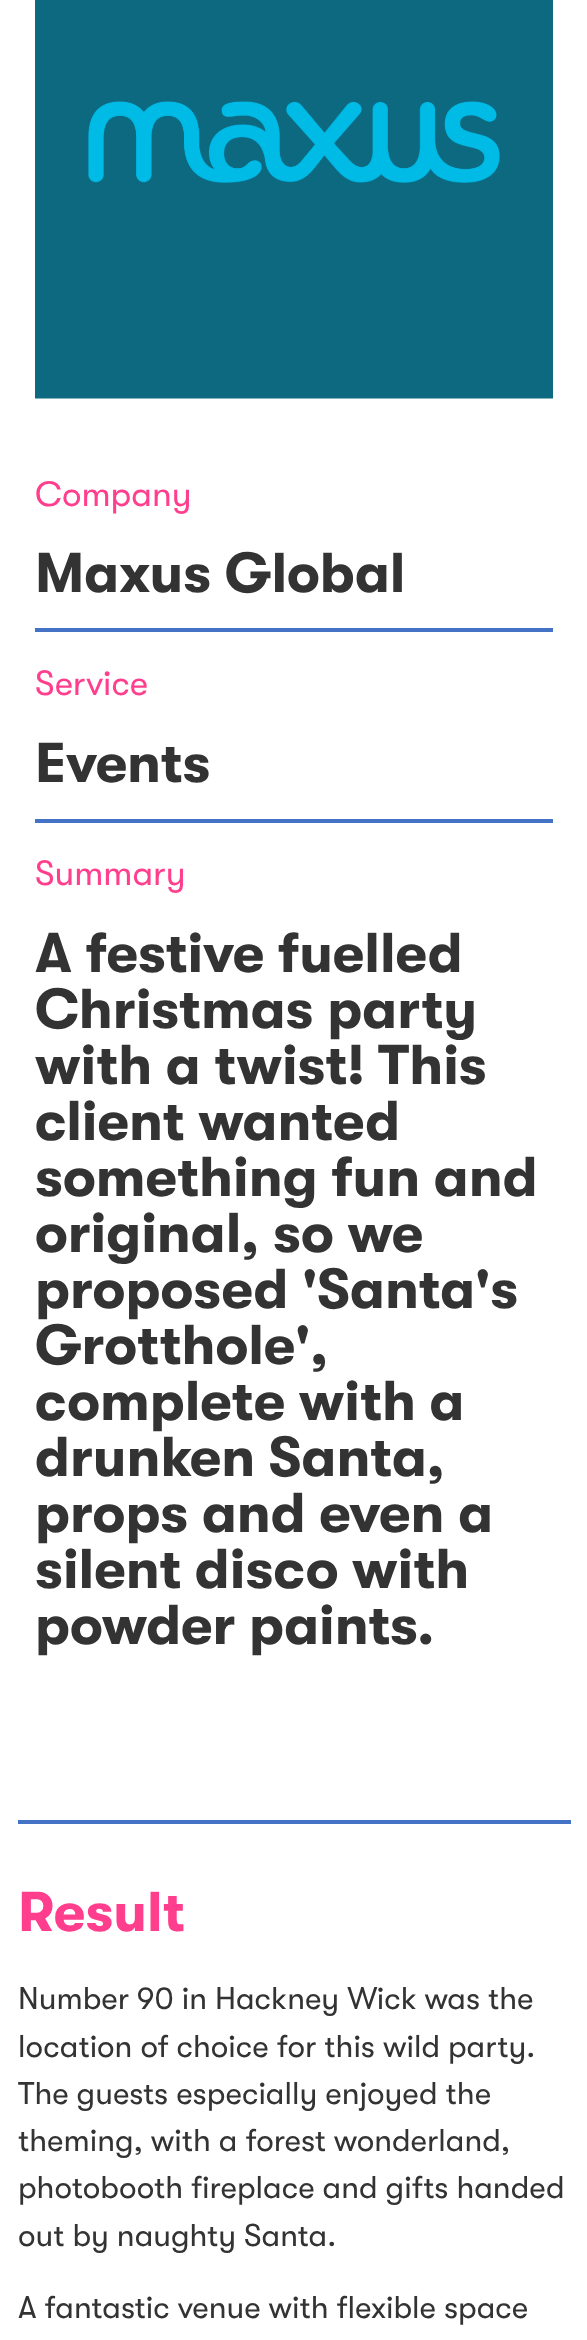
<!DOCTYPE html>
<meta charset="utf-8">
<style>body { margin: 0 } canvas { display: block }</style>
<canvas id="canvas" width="587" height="2340"></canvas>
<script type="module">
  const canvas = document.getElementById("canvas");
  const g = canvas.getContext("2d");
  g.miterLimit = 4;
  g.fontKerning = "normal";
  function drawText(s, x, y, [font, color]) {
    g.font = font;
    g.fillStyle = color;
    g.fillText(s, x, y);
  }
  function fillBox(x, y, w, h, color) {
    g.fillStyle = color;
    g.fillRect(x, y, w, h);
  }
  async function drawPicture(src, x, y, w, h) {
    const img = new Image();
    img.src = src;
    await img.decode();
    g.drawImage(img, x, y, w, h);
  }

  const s1 = ["35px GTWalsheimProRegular", "#FF3F8D"];
  const s2 = ["bold 56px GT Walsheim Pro", "#333333"];
  const s3 = ["bold 56px GT Walsheim Pro", "#FF3F8D"];
  const s4 = ["31.5px GTWalsheimProRegular", "#333333"];

  fillBox(0, 0, 587, 2340, "#FFFFFF");
  await drawPicture("pic1.png", 35, 0, 518, 399);
  drawText("Company", 35, 506, s1);
  drawText("Maxus Global", 35, 592, s2);
  fillBox(35, 628, 518, 4, "#4472C4");
  drawText("Service", 35, 695, s1);
  drawText("Events", 35, 782, s2);
  fillBox(35, 819, 518, 4, "#4472C4");
  drawText("Summary", 35, 885, s1);
  drawText("A festive fuelled", 35, 972, s2);
  drawText("Christmas party", 35, 1028, s2);
  drawText("with a twist! This", 35, 1084, s2);
  drawText("client wanted", 35, 1140, s2);
  drawText("something fun and", 35, 1196, s2);
  drawText("original, so we", 35, 1252, s2);
  drawText("proposed 'Santa's", 35, 1308, s2);
  drawText("Grotthole',", 35, 1364, s2);
  drawText("complete with a", 35, 1420, s2);
  drawText("drunken Santa,", 35, 1476, s2);
  drawText("props and even a", 35, 1532, s2);
  drawText("silent disco with", 35, 1588, s2);
  drawText("powder paints.", 35, 1644, s2);
  fillBox(18, 1820, 553, 4, "#4472C4");
  drawText("Result", 18, 1931, s3);
  drawText("Number 90 in Hackney Wick was the", 18, 2009, s4);
  drawText("location of choice for this wild party.", 18, 2057, s4);
  drawText("The guests especially enjoyed the", 18, 2104, s4);
  drawText("theming, with a forest wonderland,", 18, 2151, s4);
  drawText("photobooth fireplace and gifts handed", 18, 2198, s4);
  drawText("out by naughty Santa.", 18, 2246, s4);
  drawText("A fantastic venue with flexible space", 18, 2318, s4);
</script>
